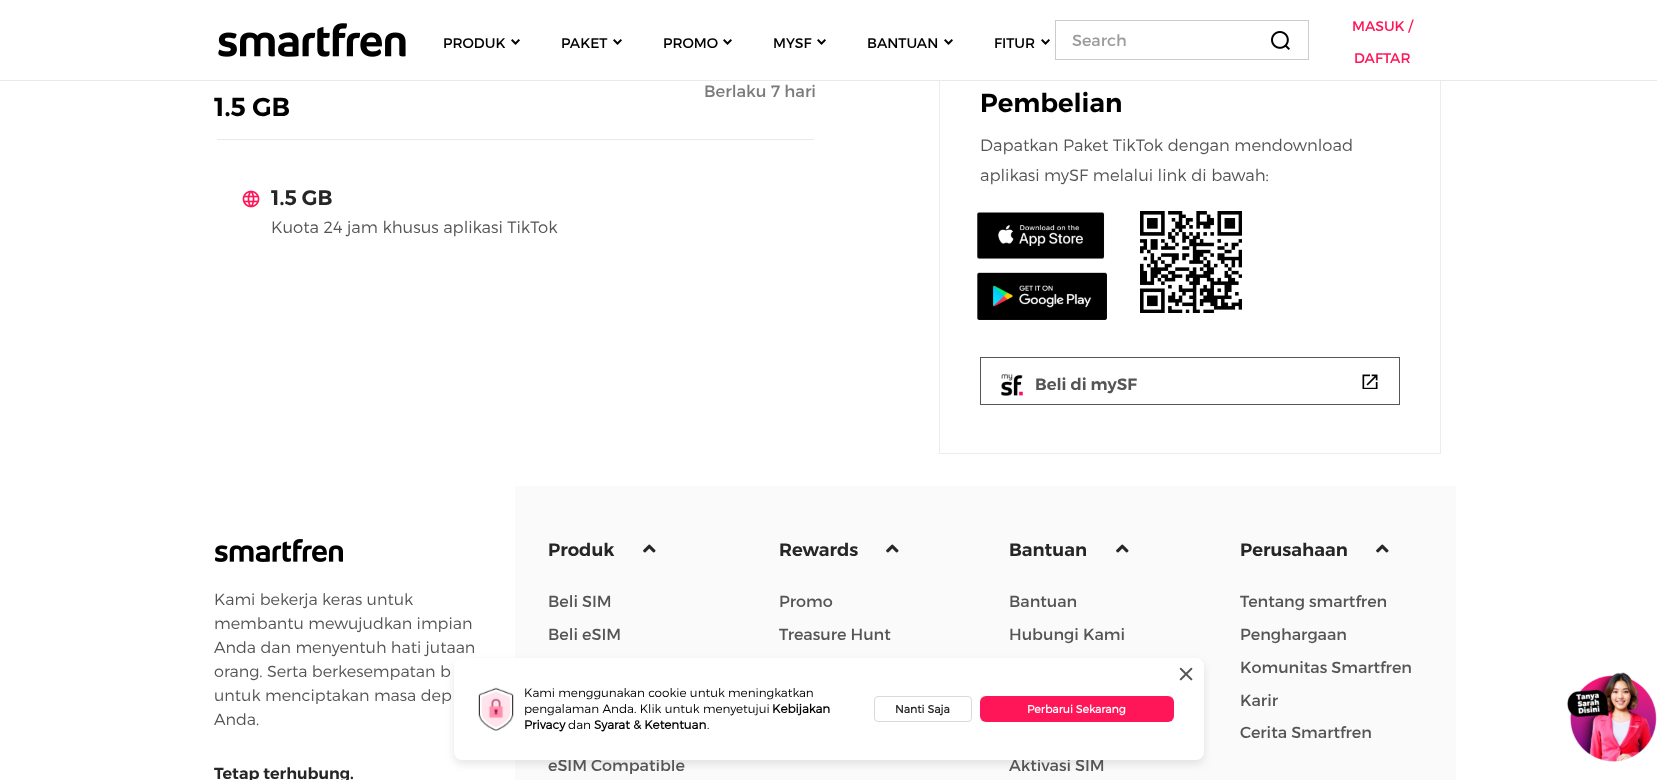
<!DOCTYPE html>
<meta charset="utf-8">
<style>body { margin: 0 } canvas { display: block }</style>
<canvas id="canvas" width="1657" height="780"></canvas>
<script type="module">
  const canvas = document.getElementById("canvas");
  const g = canvas.getContext("2d");
  g.miterLimit = 4;
  g.fontKerning = "normal";
  function drawText(s, x, y, [font, color]) {
    g.font = font;
    g.fillStyle = color;
    g.fillText(s, x, y);
  }
  function fillBox(x, y, w, h, color) {
    g.fillStyle = color;
    g.fillRect(x, y, w, h);
  }
  function fillRounded(x, y, w, h, r, color) {
    g.fillStyle = color;
    g.beginPath();
    g.roundRect(x, y, w, h, r);
    g.fill();
  }
  async function drawPicture(src, x, y, w, h) {
    const img = new Image();
    img.src = src;
    await img.decode();
    g.drawImage(img, x, y, w, h);
  }

  const s1 = ["14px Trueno", "#000000"];
  const s2 = ["16px 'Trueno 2'", "#9D9D9D"];
  const s3 = ["14px Trueno", "#FF1659"];
  const s4 = ["16.4px Trueno", "#7B7B7B"];
  const s5 = ["600 26px Trueno", "#000000"];
  const s6 = ["600 21px Trueno", "#262626"];
  const s7 = ["300 16.4px Trueno", "#555555"];
  const s8 = ["600 16.4px Trueno", "#555555"];
  const s9 = ["300 16px Trueno", "#555555"];
  const s10 = ["600 16px Trueno", "#262626"];
  const s11 = ["600 18px Trueno", "#262626"];
  const s12 = ["16px Trueno", "#555555"];
  const s13 = ["300 12px Trueno", "#000000"];
  const s14 = ["bold 12px Trueno", "#000000"];
  const s15 = ["bold 11px Trueno", "#262626"];
  const s16 = ["bold 11px Trueno", "#FFFFFF"];

  fillBox(0, 0, 1657, 780, "#FFFFFF");
  g.strokeStyle = "#EAECED";
  g.strokeRect(939.5, 47.5, 501, 406);
  fillBox(939, 47, 502, 33, "#FFFFFF");
  fillBox(0, 80, 1657, 1, "#E9E9E9");
  await drawPicture("pic1.png", 218, 23, 188, 34);
  drawText("PRODUK", 443, 48, s1);
  await drawPicture("pic2.png", 511, 39, 9, 6);
  drawText("PAKET", 561, 48, s1);
  await drawPicture("pic2.png", 613, 39, 9, 6);
  drawText("PROMO", 663, 48, s1);
  await drawPicture("pic2.png", 723, 39, 9, 6);
  drawText("MYSF", 773, 48, s1);
  await drawPicture("pic2.png", 817, 39, 9, 6);
  drawText("BANTUAN", 867, 48, s1);
  await drawPicture("pic2.png", 944, 39, 9, 6);
  drawText("FITUR", 994, 48, s1);
  await drawPicture("pic2.png", 1041, 39, 9, 6);
  await drawPicture("pic3.png", 1271, 31, 19, 19);
  g.strokeStyle = "#CCCCCC";
  g.strokeRect(1055.5, 20.5, 253, 39);
  drawText("Search", 1072, 46, s2);
  drawText("MASUK /", 1352, 31, s3);
  drawText("DAFTAR", 1354, 63, s3);
  drawText("Berlaku 7 hari", 704, 97, s4);
  drawText("1.5 GB", 214, 116, s5);
  fillBox(217, 139, 597, 1, "#E9E9E9");
  await drawPicture("pic4.png", 242, 190, 18, 18);
  drawText("1.5 GB", 271, 205, s6);
  drawText("Kuota 24 jam khusus aplikasi TikTok", 271, 233, s7);
  drawText("Pembelian", 980, 112, s5);
  drawText("Dapatkan Paket TikTok dengan mendownload", 980, 151, s7);
  drawText("aplikasi mySF melalui link di bawah:", 980, 181, s7);
  await drawPicture("pic5.png", 977, 212, 128, 47);
  await drawPicture("pic6.png", 977, 272, 130, 48);
  await drawPicture("pic7.png", 1140, 211, 102, 102);
  g.strokeStyle = "#555555";
  g.strokeRect(980.5, 357.5, 419, 47);
  await drawPicture("pic8.png", 1001, 374, 22, 22);
  drawText("Beli di mySF", 1035, 390, s8);
  await drawPicture("pic9.png", 1362, 374, 16, 15);
  await drawPicture("pic10.png", 214, 539, 129, 23);
  drawText("Kami bekerja keras untuk", 214, 605, s9);
  drawText("membantu mewujudkan impian", 214, 629, s9);
  drawText("Anda dan menyentuh hati jutaan", 214, 653, s9);
  drawText("orang. Serta berkesempatan b", 214, 677, s9);
  drawText("untuk menciptakan masa dep", 214, 701, s9);
  drawText("Anda.", 214, 725, s9);
  drawText("Tetap terhubung.", 214, 779, s10);
  fillBox(515, 486, 941, 294, "#FAFAFA");
  drawText("Produk", 548, 556, s11);
  await drawPicture("pic11.png", 643, 544, 13, 9);
  drawText("Beli SIM", 548, 607, s12);
  drawText("Beli eSIM", 548, 640, s12);
  drawText("eSIM Compatible", 548, 771, s12);
  drawText("Rewards", 779, 556, s11);
  await drawPicture("pic11.png", 886, 544, 13, 9);
  drawText("Promo", 779, 607, s12);
  drawText("Treasure Hunt", 779, 640, s12);
  drawText("Bantuan", 1009, 556, s11);
  await drawPicture("pic11.png", 1116, 544, 13, 9);
  drawText("Bantuan", 1009, 607, s12);
  drawText("Hubungi Kami", 1009, 640, s12);
  drawText("Aktivasi SIM", 1009, 771, s12);
  drawText("Perusahaan", 1240, 556, s11);
  await drawPicture("pic11.png", 1376, 544, 13, 9);
  drawText("Tentang smartfren", 1240, 607, s12);
  drawText("Penghargaan", 1240, 640, s12);
  drawText("Komunitas Smartfren", 1240, 673, s12);
  drawText("Karir", 1240, 706, s12);
  drawText("Cerita Smartfren", 1240, 738, s12);
  await drawPicture("pic12.png", 1567, 672, 90, 90);
  g.fillStyle = "rgba(96, 97, 112, 0.16)";
  g.filter = "blur(4px)";
  g.beginPath();
  g.roundRect(454, 662, 750, 102, 8);
  g.fill();
  g.filter = "none";
  fillRounded(454, 658, 750, 102, 8, "#FFFFFF");
  await drawPicture("pic13.png", 1179, 667, 14, 14);
  await drawPicture("pic14.png", 478, 687, 36, 45);
  drawText("Kami menggunakan cookie untuk meningkatkan", 524, 697, s13);
  drawText("pengalaman Anda. Klik untuk menyetujui", 524, 713, s13);
  drawText("Kebijakan", 772, 713, s14);
  drawText("Privacy", 524, 729, s14);
  drawText("dan", 568, 729, s13);
  drawText("Syarat & Ketentuan", 594, 729, s14);
  drawText(".", 707, 729, s13);
  g.beginPath();
  g.roundRect(874.5, 696.5, 97, 25, 3.5);
  g.strokeStyle = "#D9D9D9";
  g.stroke();
  drawText("Nanti Saja", 895, 713, s15);
  fillRounded(980, 696, 194, 26, 6, "#FF1659");
  drawText("Perbarui Sekarang", 1027, 713, s16);
</script>
